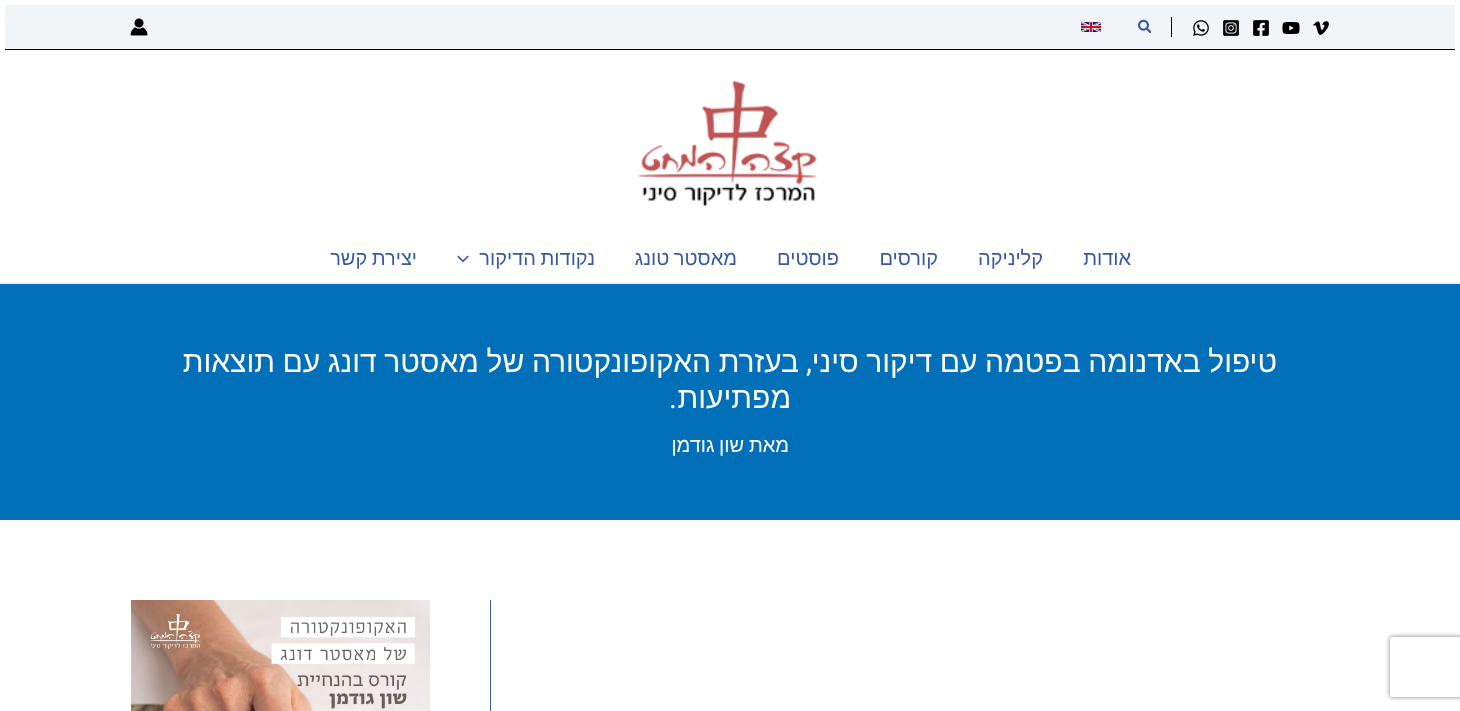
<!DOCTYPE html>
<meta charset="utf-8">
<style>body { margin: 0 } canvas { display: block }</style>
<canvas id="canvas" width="1460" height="711"></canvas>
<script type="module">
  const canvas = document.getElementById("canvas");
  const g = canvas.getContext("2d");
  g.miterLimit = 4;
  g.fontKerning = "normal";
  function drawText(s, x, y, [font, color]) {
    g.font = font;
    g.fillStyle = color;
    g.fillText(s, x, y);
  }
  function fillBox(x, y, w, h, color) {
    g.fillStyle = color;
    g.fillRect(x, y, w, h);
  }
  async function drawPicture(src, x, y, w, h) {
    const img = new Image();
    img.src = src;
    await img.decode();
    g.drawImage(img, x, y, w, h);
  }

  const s1 = ["20px Liberation Sans", "#365AA6"];
  const s2 = ["30px Liberation Sans", "#FFFFFF"];
  const s3 = ["30px Roboto", "#FFFFFF"];
  const s4 = ["20px Liberation Sans", "#FFFFFF"];

  fillBox(0, 0, 1460, 711, "#FFFFFF");
  fillBox(5, 5, 1450, 44, "#F2F5F7");
  fillBox(5, 49, 1450, 1, "#000000");
  await drawPicture("pic1.png", 1313, 21, 16, 14);
  await drawPicture("pic2.png", 1282, 22, 18, 12);
  await drawPicture("pic3.png", 1253, 20, 16, 16);
  await drawPicture("pic4.png", 1223, 20, 16, 16);
  await drawPicture("pic5.png", 1193, 20, 16, 16);
  fillBox(1171, 17, 1, 20, "#000000");
  await drawPicture("pic6.png", 1138, 19, 13, 15);
  await drawPicture("pic7.png", 1081, 22, 20, 10);
  await drawPicture("pic8.png", 130, 18, 18, 18);
  await drawPicture("pic9.png", 637, 81, 180, 125);
  fillBox(0, 283, 1460, 1, "#EAEAEA");
  g.direction = "rtl";
  drawText("אודות", 1131, 265, s1);
  drawText("קליניקה", 1043, 265, s1);
  drawText("קורסים", 938, 265, s1);
  drawText("פוסטים", 839, 265, s1);
  g.wordSpacing = "-1px";
  drawText("מאסטר טונג", 737, 265, s1);
  drawText("נקודות הדיקור", 595, 265, s1);
  await drawPicture("pic10.png", 457, 255, 12, 8);
  drawText("יצירת קשר", 417, 265, s1);
  fillBox(0, 284, 1460, 236, "#0170B9");
  g.wordSpacing = "-0.75px";
  drawText("טיפול באדנומה בפטמה עם דיקור סיני", 1277, 372, s2);
  g.wordSpacing = "0px";
  drawText(",", 812, 372, s3);
  g.wordSpacing = "-0.75px";
  drawText("בעזרת האקופונקטורה של מאסטר דונג עם תוצאות", 799, 372, s2);
  g.wordSpacing = "0px";
  drawText("מפתיעות", 791, 408, s2);
  drawText(".", 677, 408, s3);
  drawText("מאת", 789, 452, s4);
  g.wordSpacing = "-1px";
  drawText("שון גודמן", 744, 452, s4);
  fillBox(490, 600, 1, 111, "#365AA6");
  await drawPicture("pic11.png", 131, 600, 299, 111);
  g.save();
  g.beginPath();
  g.moveTo(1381, 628);
  g.lineTo(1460, 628);
  g.lineTo(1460, 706);
  g.lineTo(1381, 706);
  g.closePath();
  g.moveTo(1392, 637);
  g.lineTo(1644, 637);
  g.bezierCurveTo(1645, 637, 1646, 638, 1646, 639);
  g.lineTo(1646, 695);
  g.bezierCurveTo(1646, 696, 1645, 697, 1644, 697);
  g.lineTo(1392, 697);
  g.bezierCurveTo(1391, 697, 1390, 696, 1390, 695);
  g.lineTo(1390, 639);
  g.bezierCurveTo(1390, 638, 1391, 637, 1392, 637);
  g.closePath();
  g.clip("evenodd");
  g.fillStyle = "#808080";
  g.filter = "blur(2.5px)";
  g.beginPath();
  g.roundRect(1390, 637, 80, 60, 2);
  g.fill();
  g.filter = "none";
  g.restore();
</script>
